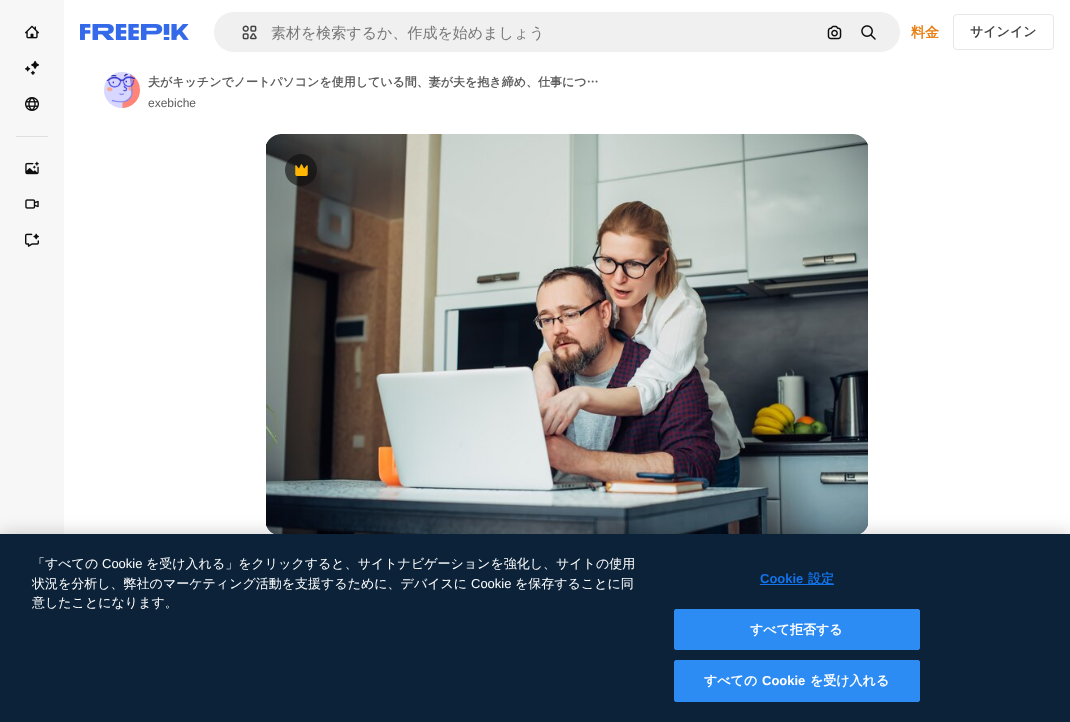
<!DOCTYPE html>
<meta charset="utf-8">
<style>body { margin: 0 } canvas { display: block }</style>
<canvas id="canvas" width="1070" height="722"></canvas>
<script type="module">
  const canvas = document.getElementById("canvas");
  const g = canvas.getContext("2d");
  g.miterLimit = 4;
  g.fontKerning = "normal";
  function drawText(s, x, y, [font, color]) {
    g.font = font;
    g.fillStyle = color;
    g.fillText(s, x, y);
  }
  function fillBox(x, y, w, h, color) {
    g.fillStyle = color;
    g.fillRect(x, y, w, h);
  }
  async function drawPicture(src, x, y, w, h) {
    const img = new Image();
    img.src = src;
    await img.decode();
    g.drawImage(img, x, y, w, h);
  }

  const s1 = ["500 15px WenQuanYi Zen Hei", "#777777"];
  const s2 = ["bold 14px WenQuanYi Zen Hei", "#EA7E11"];
  const s3 = ["bold 13px WenQuanYi Zen Hei", "#424242"];
  const s4 = ["bold 12px WenQuanYi Zen Hei", "#5C5C5C"];
  const s5 = ["12px Liberation Sans", "#5C5C5C"];
  const s6 = ["500 13px WenQuanYi Zen Hei", "#FFFFFF"];
  const s7 = ["13px Liberation Sans", "#FFFFFF"];
  const s8 = ["bold 13px Liberation Sans", "#1273EB"];
  const s9 = ["bold 13px WenQuanYi Zen Hei", "#1273EB"];
  const s10 = ["bold 13px WenQuanYi Zen Hei", "#FFFFFF"];
  const s11 = ["bold 13px Liberation Sans", "#FFFFFF"];

  fillBox(0, 0, 1070, 722, "#FFFFFF");
  fillBox(0, 0, 64, 534, "#F7F7F7");
  await drawPicture("pic1.png", 25, 25, 14, 14);
  await drawPicture("pic2.png", 25, 61, 14, 14);
  await drawPicture("pic3.png", 25, 97, 14, 14);
  fillBox(16, 136, 32, 1, "#E0E0E0");
  await drawPicture("pic4.png", 25, 161, 14, 14);
  await drawPicture("pic5.png", 25, 199, 14, 10);
  await drawPicture("pic6.png", 25, 233, 14, 14);
  await drawPicture("pic7.png", 80, 24, 109, 16);
  g.fillStyle = "#F0F0F0";
  g.beginPath();
  g.roundRect(213.5, 11.5, 687, 41, 20.5);
  g.fill();
  g.strokeStyle = "#FFFFFF";
  g.stroke();
  await drawPicture("pic8.png", 242, 25, 15, 15);
  drawText("素材を検索するか、作成を始めましょう", 271, 38, s1);
  await drawPicture("pic9.png", 827, 25, 15, 15);
  await drawPicture("pic10.png", 861, 25, 15, 15);
  drawText("料金", 911, 37, s2);
  g.beginPath();
  g.roundRect(953.5, 14.5, 100, 35, 3.5);
  g.strokeStyle = "#E7E7E7";
  g.stroke();
  drawText("サインイン", 970, 36, s3);
  await drawPicture("pic11.png", 104, 72, 36, 36);
  drawText("夫がキッチンでノートパソコンを使用している間、妻が夫を抱き締め、仕事につ…", 148, 86, s4);
  drawText("exebiche", 148, 107, s5);
  await drawPicture("pic12.png", 266, 134, 602, 400);
  g.fillStyle = "rgba(13, 13, 13, 0.6)";
  g.beginPath();
  g.arc(301, 170, 16, 0, Math.PI * 2);
  g.fill();
  await drawPicture("pic13.png", 295, 164, 13, 12);
  g.fillStyle = "rgba(0, 0, 0, 0.2)";
  g.filter = "blur(9px)";
  g.beginPath();
  g.rect(0, 534, 1070, 188);
  g.fill();
  g.filter = "none";
  fillBox(0, 534, 1070, 188, "#0B2239");
  drawText("「すべての", 32, 568, s6);
  drawText("Cookie", 102, 568, s7);
  drawText("を受け入れる」をクリックすると、サイトナビゲーションを強化し、サイトの使用", 146, 568, s6);
  drawText("状況を分析し、弊社のマーケティング活動を支援するために、デバイスに", 32, 588, s6);
  drawText("Cookie", 471, 588, s7);
  drawText("を保存することに同", 515, 588, s6);
  drawText("意したことになります。", 32, 607, s6);
  drawText("Cookie", 760, 583, s8);
  fillBox(760, 584, 74, 1, "#1273EB");
  drawText("設定", 808, 583, s9);
  g.fillStyle = "#2C8CF4";
  g.beginPath();
  g.roundRect(674.5, 609.5, 245, 40, 1.5);
  g.fill();
  g.strokeStyle = "#2C8CF4";
  g.stroke();
  drawText("すべて拒否する", 750, 634, s10);
  g.fillStyle = "#2C8CF4";
  g.beginPath();
  g.roundRect(674.5, 660.5, 245, 41, 1.5);
  g.fill();
  g.stroke();
  drawText("すべての", 704, 685, s10);
  drawText("Cookie", 762, 685, s11);
  drawText("を受け入れる", 810, 685, s10);
</script>
